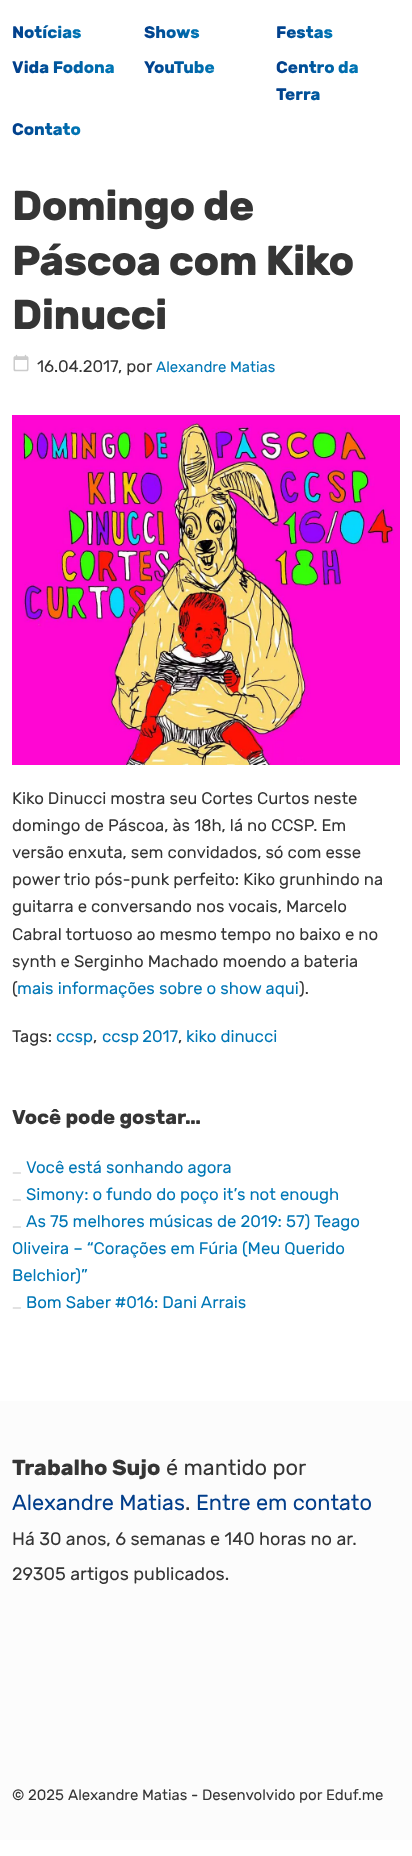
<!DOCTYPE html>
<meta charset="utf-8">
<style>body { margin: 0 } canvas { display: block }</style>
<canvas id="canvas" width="412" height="1856"></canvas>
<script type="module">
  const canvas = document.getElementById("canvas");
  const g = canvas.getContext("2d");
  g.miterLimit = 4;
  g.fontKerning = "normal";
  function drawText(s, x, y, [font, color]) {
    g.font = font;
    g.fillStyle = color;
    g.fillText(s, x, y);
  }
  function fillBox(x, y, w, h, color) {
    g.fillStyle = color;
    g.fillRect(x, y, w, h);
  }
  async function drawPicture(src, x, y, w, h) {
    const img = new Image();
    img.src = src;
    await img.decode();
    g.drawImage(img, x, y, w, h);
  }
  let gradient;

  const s1 = ["bold 41.75px Rubik", "#353535"];
  const s2 = ["16.75px Rubik", "#353535"];
  const s3 = ["15px Rubik", "#0077B6"];
  const s4 = ["16.75px Rubik", "#0077B6"];
  const s5 = ["bold 20px Rubik", "#353535"];
  const s6 = ["13px Rubik", "#C9C9C9"];
  const s7 = ["bold 21.75px Rubik", "#353535"];
  const s8 = ["21.75px Rubik", "#353535"];
  const s9 = ["21.75px Rubik", "#023E8A"];
  const s10 = ["18.1px Rubik", "#353535"];
  const s11 = ["15px Rubik", "#353535"];

  fillBox(0, 0, 412, 1856, "#FFFFFF");
  g.font = "bold 16.75px Rubik";
  gradient = g.createLinearGradient(12, 33, 82, 33);
  gradient.addColorStop(0, "#023E8A");
  gradient.addColorStop(1, "#0077B6");
  g.fillStyle = gradient;
  g.fillText("Notícias", 12, 38);
  gradient = g.createLinearGradient(144, 33, 200, 33);
  gradient.addColorStop(0, "#023E8A");
  gradient.addColorStop(1, "#0077B6");
  g.fillStyle = gradient;
  g.fillText("Shows", 144, 38);
  gradient = g.createLinearGradient(276, 33, 333, 33);
  gradient.addColorStop(0, "#023E8A");
  gradient.addColorStop(1, "#0077B6");
  g.fillStyle = gradient;
  g.fillText("Festas", 276, 38);
  gradient = g.createLinearGradient(12, 68, 115, 68);
  gradient.addColorStop(0, "#023E8A");
  gradient.addColorStop(1, "#0077B6");
  g.fillStyle = gradient;
  g.fillText("Vida Fodona", 12, 73);
  gradient = g.createLinearGradient(144, 68, 215, 68);
  gradient.addColorStop(0, "#023E8A");
  gradient.addColorStop(1, "#0077B6");
  g.fillStyle = gradient;
  g.fillText("YouTube", 144, 73);
  gradient = g.createLinearGradient(276, 81, 359, 81);
  gradient.addColorStop(0, "#023E8A");
  gradient.addColorStop(1, "#0077B6");
  g.fillStyle = gradient;
  g.fillText("Centro da", 276, 73);
  g.fillText("Terra", 276, 100);
  gradient = g.createLinearGradient(12, 130, 81, 130);
  gradient.addColorStop(0, "#023E8A");
  gradient.addColorStop(1, "#0077B6");
  g.fillStyle = gradient;
  g.fillText("Contato", 12, 135);
  g.letterSpacing = "-0.5px";
  drawText("Domingo de", 12, 220, s1);
  drawText("Páscoa com Kiko", 12, 275, s1);
  drawText("Dinucci", 12, 329, s1);
  await drawPicture("pic1.png", 13, 354, 16, 18);
  g.letterSpacing = "0px";
  drawText("16.04.2017", 37, 372, s2);
  drawText(", por", 118, 372, s2);
  drawText("Alexandre Matias", 156, 372, s3);
  await drawPicture("pic2.png", 12, 415, 388, 350);
  drawText("Kiko Dinucci mostra seu Cortes Curtos neste", 12, 804, s2);
  drawText("domingo de Páscoa, às 18h, lá no CCSP. Em", 12, 831, s2);
  drawText("versão enxuta, sem convidados, só com esse", 12, 858, s2);
  drawText("power trio pós-punk perfeito: Kiko grunhindo na", 12, 885, s2);
  drawText("guitarra e conversando nos vocais, Marcelo", 12, 912, s2);
  drawText("Cabral tortuoso ao mesmo tempo no baixo e no", 12, 940, s2);
  drawText("synth e Serginho Machado moendo a bateria", 12, 967, s2);
  drawText("(", 12, 994, s2);
  drawText("mais informações sobre o show aqui", 17, 994, s4);
  drawText(").", 299, 994, s2);
  drawText("Tags:", 12, 1042, s2);
  drawText("ccsp", 56, 1042, s4);
  drawText(",", 93, 1042, s2);
  g.wordSpacing = "-1px";
  drawText("ccsp 2017", 102, 1042, s4);
  g.wordSpacing = "0px";
  drawText(",", 178, 1042, s2);
  drawText("kiko dinucci", 186, 1042, s4);
  drawText("Você pode gostar…", 12, 1124, s5);
  drawText("_", 12, 1173, s6);
  drawText("Você está sonhando agora", 26, 1173, s4);
  drawText("_", 12, 1200, s6);
  drawText("Simony: o fundo do poço it’s not enough", 26, 1200, s4);
  drawText("_", 12, 1227, s6);
  drawText("As 75 melhores músicas de 2019: 57) Teago", 26, 1227, s4);
  drawText("Oliveira – “Corações em Fúria (Meu Querido", 12, 1254, s4);
  drawText("Belchior)”", 12, 1281, s4);
  drawText("_", 12, 1308, s6);
  drawText("Bom Saber #016: Dani Arrais", 26, 1308, s4);
  fillBox(0, 1401, 412, 439, "#FCFCFC");
  drawText("Trabalho Sujo", 12, 1475, s7);
  drawText("é mantido por", 166, 1475, s8);
  drawText("Alexandre Matias", 12, 1510, s9);
  drawText(".", 185, 1510, s8);
  drawText("Entre em contato", 196, 1510, s9);
  drawText("Há 30 anos, 6 semanas e 140 horas no ar.", 12, 1545, s10);
  drawText("29305 artigos publicados.", 12, 1580, s10);
  drawText("© 2025", 12, 1800, s11);
  drawText("Alexandre Matias", 68, 1800, s11);
  drawText("- Desenvolvido por", 191, 1800, s11);
  drawText("Eduf.me", 326, 1800, s11);
</script>
